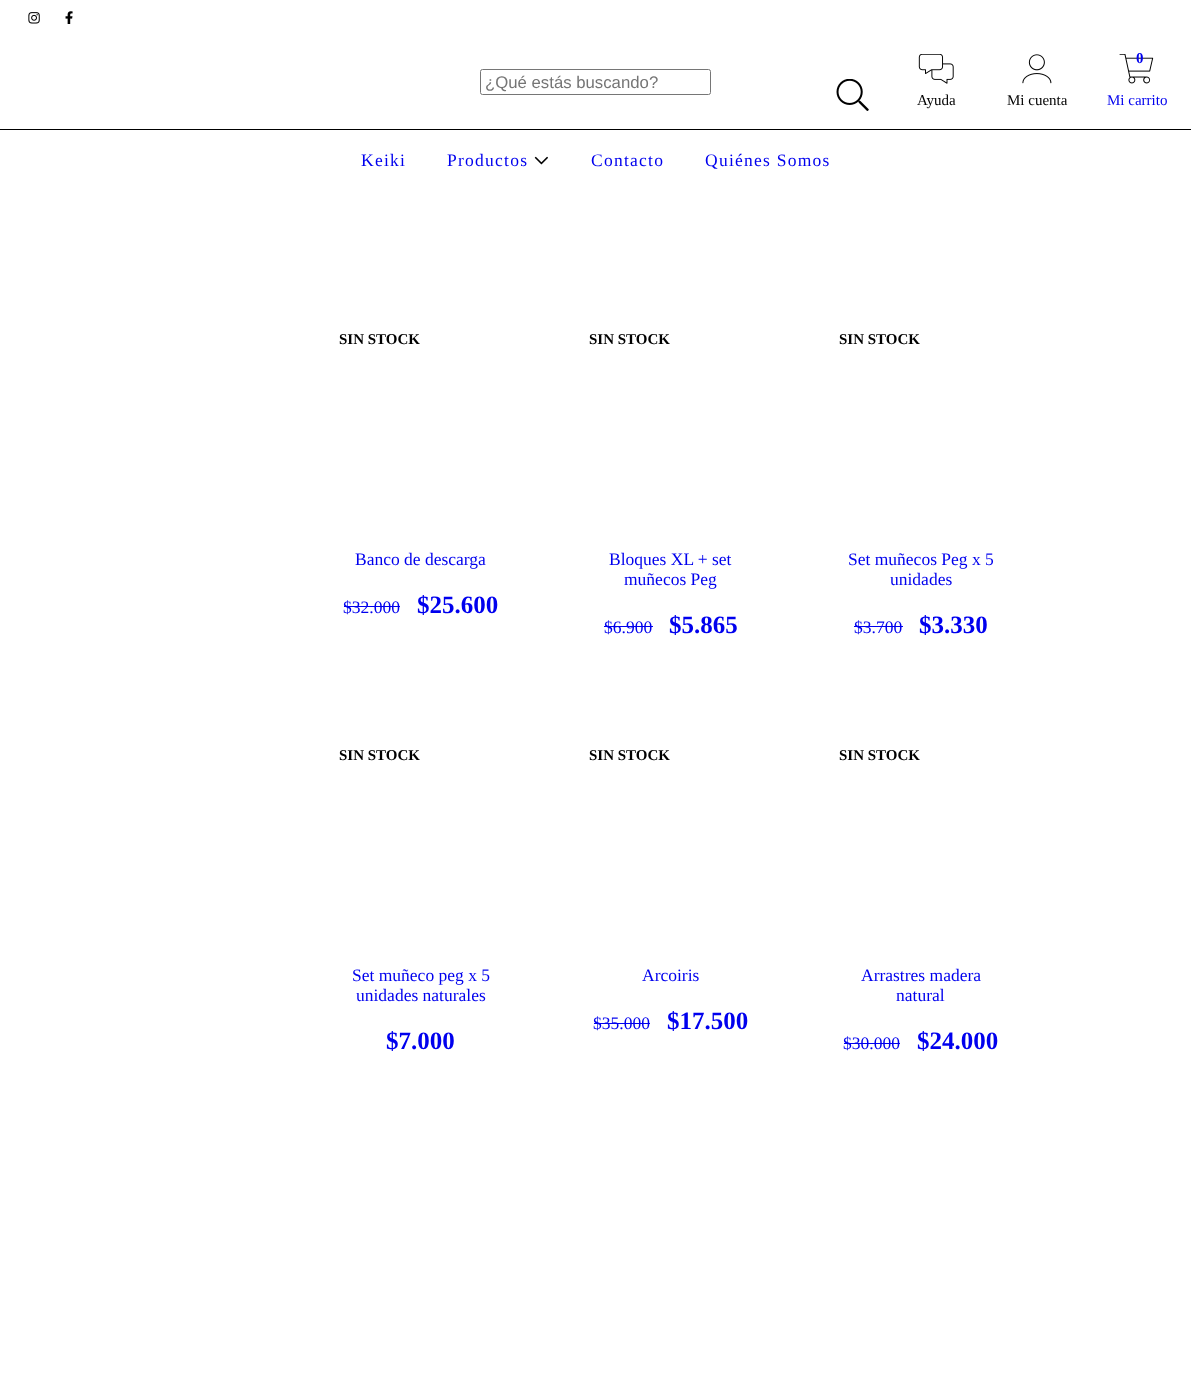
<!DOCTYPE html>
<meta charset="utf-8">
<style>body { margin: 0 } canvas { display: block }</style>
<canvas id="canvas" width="1191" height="1398"></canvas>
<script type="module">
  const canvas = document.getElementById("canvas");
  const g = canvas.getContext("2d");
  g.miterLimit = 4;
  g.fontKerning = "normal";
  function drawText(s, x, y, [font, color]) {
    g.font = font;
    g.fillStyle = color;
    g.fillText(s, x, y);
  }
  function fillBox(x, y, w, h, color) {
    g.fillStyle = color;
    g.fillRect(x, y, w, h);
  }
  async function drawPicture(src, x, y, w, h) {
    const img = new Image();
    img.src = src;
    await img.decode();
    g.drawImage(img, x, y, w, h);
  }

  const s1 = ["16.75px Liberation Sans", "#757575"];
  const s2 = ["15px Liberation Serif", "#000000"];
  const s3 = ["bold 15px Liberation Serif", "#0000EE"];
  const s4 = ["15px Liberation Serif", "#0000EE"];
  const s5 = ["17.5px Liberation Serif", "#0000EE"];
  const s6 = ["bold 15px Liberation Serif", "#000000"];
  const s7 = ["bold 25px Liberation Serif", "#0000EE"];

  fillBox(0, 0, 1191, 1398, "#FFFFFF");
  await drawPicture("pic1.png", 28, 12, 12, 12);
  await drawPicture("pic2.png", 65, 11, 8, 13);
  g.beginPath();
  g.roundRect(480.5, 69.5, 230, 25, 2);
  g.strokeStyle = "#767676";
  g.stroke();
  drawText("¿Qué estás buscando?", 485, 88, s1);
  await drawPicture("pic3.png", 836, 79, 33, 32);
  await drawPicture("pic4.png", 918, 54, 36, 30);
  drawText("Ayuda", 917, 105, s2);
  await drawPicture("pic5.png", 1022, 54, 30, 30);
  drawText("Mi cuenta", 1007, 105, s2);
  await drawPicture("pic6.png", 1119, 54, 35, 30);
  drawText("0", 1136, 63, s3);
  drawText("Mi carrito", 1107, 105, s4);
  fillBox(0, 129, 1191, 1, "#000000");
  g.letterSpacing = "1.25px";
  drawText("Keiki", 361, 166, s5);
  drawText("Productos", 447, 166, s5);
  await drawPicture("pic7.png", 534, 156, 14, 9);
  drawText("Contacto", 591, 166, s5);
  drawText("Quiénes Somos", 705, 166, s5);
  g.letterSpacing = "0px";
  drawText("SIN STOCK", 339, 344, s6);
  drawText("Banco de descarga", 355, 565, s5);
  drawText("$32.000", 343, 613, s5);
  fillBox(344, 606, 56, 1, "#0000EE");
  drawText("$25.600", 417, 613, s7);
  drawText("SIN STOCK", 589, 344, s6);
  drawText("Bloques XL + set", 609, 565, s5);
  drawText("muñecos Peg", 624, 585, s5);
  drawText("$6.900", 604, 633, s5);
  fillBox(604, 626, 49, 1, "#0000EE");
  drawText("$5.865", 669, 633, s7);
  drawText("SIN STOCK", 839, 344, s6);
  drawText("Set muñecos Peg x 5", 848, 565, s5);
  drawText("unidades", 890, 585, s5);
  drawText("$3.700", 854, 633, s5);
  fillBox(854, 626, 49, 1, "#0000EE");
  drawText("$3.330", 919, 633, s7);
  drawText("SIN STOCK", 339, 760, s6);
  drawText("Set muñeco peg x 5", 352, 981, s5);
  drawText("unidades naturales", 356, 1001, s5);
  drawText("$7.000", 386, 1049, s7);
  drawText("SIN STOCK", 589, 760, s6);
  drawText("Arcoiris", 642, 981, s5);
  drawText("$35.000", 593, 1029, s5);
  fillBox(594, 1023, 56, 1, "#0000EE");
  drawText("$17.500", 667, 1029, s7);
  drawText("SIN STOCK", 839, 760, s6);
  drawText("Arrastres madera", 861, 981, s5);
  drawText("natural", 896, 1001, s5);
  drawText("$30.000", 843, 1049, s5);
  fillBox(844, 1043, 56, 1, "#0000EE");
  drawText("$24.000", 917, 1049, s7);
</script>
